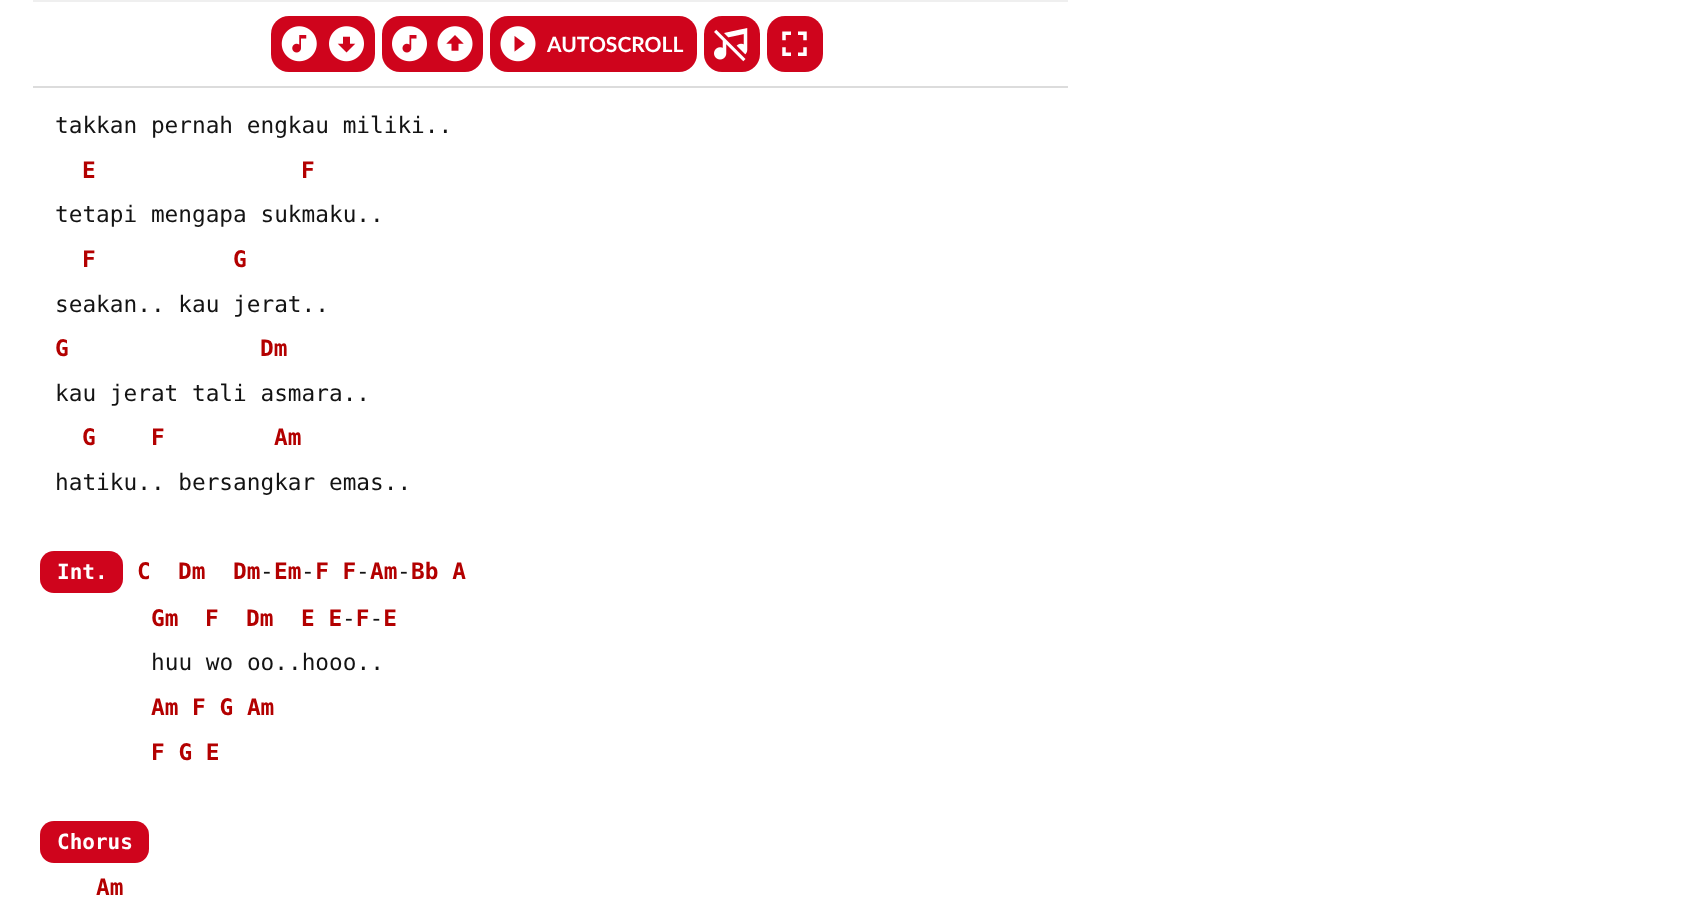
<!DOCTYPE html>
<meta charset="utf-8">
<style>body { margin: 0 } canvas { display: block }</style>
<canvas id="canvas" width="1695" height="905"></canvas>
<script type="module">
  const canvas = document.getElementById("canvas");
  const g = canvas.getContext("2d");
  g.miterLimit = 4;
  g.fontKerning = "normal";
  function drawText(s, x, y, [font, color]) {
    g.font = font;
    g.fillStyle = color;
    g.fillText(s, x, y);
  }
  function fillBox(x, y, w, h, color) {
    g.fillStyle = color;
    g.fillRect(x, y, w, h);
  }
  function fillRounded(x, y, w, h, r, color) {
    g.fillStyle = color;
    g.beginPath();
    g.roundRect(x, y, w, h, r);
    g.fill();
  }
  async function drawPicture(src, x, y, w, h) {
    const img = new Image();
    img.src = src;
    await img.decode();
    g.drawImage(img, x, y, w, h);
  }

  const s1 = ["bold 21px Lato", "#FFFFFF"];
  const s2 = ["22.75px DejaVu Sans Mono", "#131313"];
  const s3 = ["bold 22.75px DejaVu Sans Mono", "#B30000"];
  const s4 = ["bold 21px DejaVu Sans Mono", "#FFFFFF"];

  fillBox(0, 0, 1695, 905, "#FFFFFF");
  fillBox(33, 0, 1035, 2, "#EFEFEF");
  fillBox(33, 86, 1035, 2, "#DCDCDC");
  fillRounded(271, 16, 104, 56, 18, "#CF041C");
  await drawPicture("pic1.png", 281, 26, 36, 36);
  await drawPicture("pic2.png", 329, 26, 35, 36);
  fillRounded(382, 16, 101, 56, 18, "#CF041C");
  await drawPicture("pic3.png", 392, 26, 35, 36);
  await drawPicture("pic4.png", 437, 26, 36, 36);
  fillRounded(490, 16, 207, 56, 18, "#CF041C");
  await drawPicture("pic5.png", 500, 26, 36, 36);
  drawText("AUTOSCROLL", 547, 52, s1);
  fillRounded(704, 16, 56, 56, 18, "#CF041C");
  await drawPicture("pic6.png", 714, 28, 34, 34);
  fillRounded(767, 16, 56, 56, 18, "#CF041C");
  await drawPicture("pic7.png", 782, 31, 25, 25);
  drawText("takkan pernah engkau miliki..", 55, 133, s2);
  drawText("E", 82, 178, s3);
  drawText("F", 301, 178, s3);
  drawText("tetapi mengapa sukmaku..", 55, 222, s2);
  drawText("F", 82, 267, s3);
  drawText("G", 233, 267, s3);
  drawText("seakan.. kau jerat..", 55, 312, s2);
  drawText("G", 55, 356, s3);
  drawText("Dm", 260, 356, s3);
  drawText("kau jerat tali asmara..", 55, 401, s2);
  drawText("G", 82, 445, s3);
  drawText("F", 151, 445, s3);
  drawText("Am", 274, 445, s3);
  drawText("hatiku.. bersangkar emas..", 55, 490, s2);
  fillRounded(40, 551, 83, 42, 14, "#CF041C");
  drawText("Int.", 57, 579, s4);
  drawText("C", 137, 579, s3);
  drawText("Dm", 178, 579, s3);
  drawText("-", 260, 579, s2);
  drawText("-", 301, 579, s2);
  drawText("-", 356, 579, s2);
  drawText("-", 397, 579, s2);
  drawText("Dm Em F F Am Bb A", 233, 579, s3);
  drawText("Gm", 151, 626, s3);
  drawText("F", 205, 626, s3);
  drawText("Dm", 246, 626, s3);
  drawText("- -", 342, 626, s2);
  drawText("E E F E", 301, 626, s3);
  drawText("huu wo oo..hooo..", 151, 670, s2);
  drawText("Am F G Am", 151, 715, s3);
  drawText("F G E", 151, 760, s3);
  fillRounded(40, 821, 109, 42, 14, "#CF041C");
  drawText("Chorus", 57, 849, s4);
  drawText("Am", 96, 895, s3);
</script>
